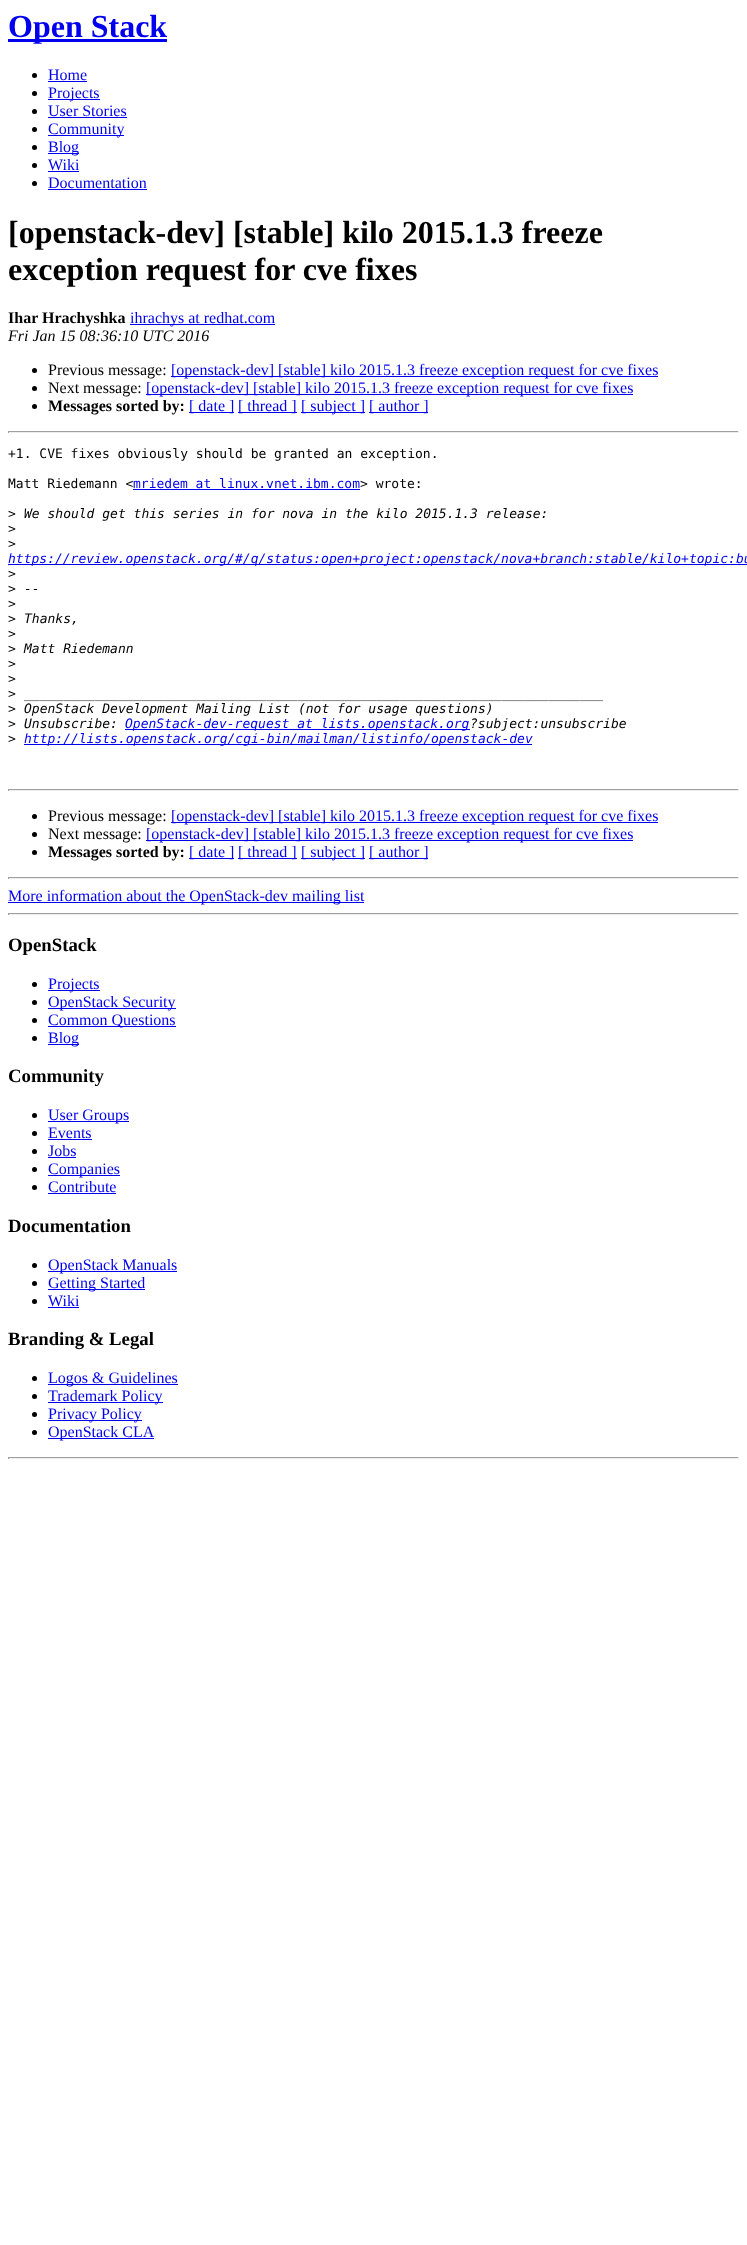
<!DOCTYPE html>
<meta charset="utf-8">
<style>body { margin: 0 } canvas { display: block }</style>
<canvas id="canvas" width="747" height="2245"></canvas>
<script type="module">
  const canvas = document.getElementById("canvas");
  const g = canvas.getContext("2d");
  g.miterLimit = 4;
  g.fontKerning = "normal";
  function drawText(s, x, y, [font, color]) {
    g.font = font;
    g.fillStyle = color;
    g.fillText(s, x, y);
  }
  function fillBox(x, y, w, h, color) {
    g.fillStyle = color;
    g.fillRect(x, y, w, h);
  }

  const s1 = ["bold 32px Liberation Serif", "#0000EE"];
  const s2 = ["16px Liberation Serif", "#0000EE"];
  const s3 = ["bold 32px Liberation Serif", "#000000"];
  const s4 = ["bold 16px Liberation Serif", "#000000"];
  const s5 = ["italic 16px Liberation Serif", "#000000"];
  const s6 = ["16px Liberation Serif", "#000000"];
  const s7 = ["13px DejaVu Sans Mono", "#000000"];
  const s8 = ["13px DejaVu Sans Mono", "#0000EE"];
  const s9 = ["italic 13px DejaVu Sans Mono", "#000000"];
  const s10 = ["italic 13px DejaVu Sans Mono", "#0000EE"];
  const s11 = ["bold 18.75px Liberation Serif", "#000000"];

  fillBox(0, 0, 747, 2245, "#FFFFFF");
  fillBox(8, 39, 159, 3, "#0000EE");
  drawText("Open Stack", 8, 37, s1);
  g.fillStyle = "#000000";
  g.beginPath();
  g.arc(34.5, 75.5, 2.5, 0, Math.PI * 2);
  g.fill();
  drawText("Home", 48, 80, s2);
  fillBox(48, 81, 39, 1, "#0000EE");
  g.fillStyle = "#000000";
  g.beginPath();
  g.arc(34.5, 93.5, 2.5, 0, Math.PI * 2);
  g.fill();
  fillBox(48, 99, 52, 1, "#0000EE");
  drawText("Projects", 48, 98, s2);
  g.fillStyle = "#000000";
  g.beginPath();
  g.arc(34.5, 111.5, 2.5, 0, Math.PI * 2);
  g.fill();
  drawText("User Stories", 48, 116, s2);
  fillBox(48, 117, 79, 1, "#0000EE");
  g.fillStyle = "#000000";
  g.beginPath();
  g.arc(34.5, 129.5, 2.5, 0, Math.PI * 2);
  g.fill();
  fillBox(48, 135, 76, 1, "#0000EE");
  drawText("Community", 48, 134, s2);
  g.fillStyle = "#000000";
  g.beginPath();
  g.arc(34.5, 147.5, 2.5, 0, Math.PI * 2);
  g.fill();
  fillBox(48, 153, 31, 1, "#0000EE");
  drawText("Blog", 48, 152, s2);
  g.fillStyle = "#000000";
  g.beginPath();
  g.arc(34.5, 165.5, 2.5, 0, Math.PI * 2);
  g.fill();
  drawText("Wiki", 48, 170, s2);
  fillBox(48, 171, 31, 1, "#0000EE");
  g.fillStyle = "#000000";
  g.beginPath();
  g.arc(34.5, 183.5, 2.5, 0, Math.PI * 2);
  g.fill();
  drawText("Documentation", 48, 188, s2);
  fillBox(48, 189, 99, 1, "#0000EE");
  drawText("[openstack-dev] [stable] kilo 2015.1.3 freeze", 8, 243, s3);
  drawText("exception request for cve fixes", 8, 280, s3);
  drawText("Ihar Hrachyshka", 8, 323, s4);
  fillBox(130, 324, 145, 1, "#0000EE");
  drawText("ihrachys at redhat.com", 130, 323, s2);
  drawText("Fri Jan 15 08:36:10 UTC 2016", 8, 341, s5);
  g.beginPath();
  g.arc(34.5, 370.5, 2.5, 0, Math.PI * 2);
  g.fill();
  drawText("Previous message:", 48, 375, s6);
  fillBox(171, 376, 487, 1, "#0000EE");
  drawText("[openstack-dev] [stable] kilo 2015.1.3 freeze exception request for cve fixes", 171, 375, s2);
  g.fillStyle = "#000000";
  g.beginPath();
  g.arc(34.5, 388.5, 2.5, 0, Math.PI * 2);
  g.fill();
  drawText("Next message:", 48, 393, s6);
  fillBox(146, 394, 487, 1, "#0000EE");
  drawText("[openstack-dev] [stable] kilo 2015.1.3 freeze exception request for cve fixes", 146, 393, s2);
  g.fillStyle = "#000000";
  g.beginPath();
  g.arc(34.5, 406.5, 2.5, 0, Math.PI * 2);
  g.fill();
  drawText("Messages sorted by:", 48, 411, s4);
  fillBox(189, 412, 45, 1, "#0000EE");
  drawText("[ date ]", 189, 411, s2);
  fillBox(238, 412, 59, 1, "#0000EE");
  drawText("[ thread ]", 238, 411, s2);
  fillBox(301, 412, 64, 1, "#0000EE");
  drawText("[ subject ]", 301, 411, s2);
  fillBox(369, 412, 59, 1, "#0000EE");
  drawText("[ author ]", 369, 411, s2);
  fillBox(8, 431, 731, 1, "#9F9F9F");
  fillBox(738, 431, 1, 2, "#EEEEEE");
  fillBox(8, 432, 731, 1, "#EEEEEE");
  fillBox(8, 431, 1, 2, "#9F9F9F");
  drawText("+1. CVE fixes obviously should be granted an exception.", 8, 458, s7);
  drawText("Matt Riedemann <", 8, 488, s7);
  drawText("mriedem at linux.vnet.ibm.com", 133, 488, s8);
  fillBox(133, 489, 227, 1, "#0000EE");
  drawText("> wrote:", 360, 488, s7);
  drawText(">", 8, 518, s7);
  drawText("We should get this series in for nova in the kilo 2015.1.3 release:", 24, 518, s9);
  drawText(">", 8, 533, s7);
  drawText(">", 8, 548, s7);
  fillBox(8, 564, 739, 1, "#0000EE");
  drawText("https://review.openstack.org/#/q/status:open+project:openstack/nova+branch:stable/kilo+topic:bu", 8, 563, s10);
  drawText(">", 8, 578, s7);
  drawText(">", 8, 593, s7);
  drawText("--", 24, 593, s9);
  drawText(">", 8, 608, s7);
  drawText(">", 8, 623, s7);
  drawText("Thanks,", 24, 623, s9);
  drawText(">", 8, 638, s7);
  drawText(">", 8, 653, s7);
  drawText("Matt Riedemann", 24, 653, s9);
  drawText(">", 8, 668, s7);
  drawText(">", 8, 683, s7);
  drawText(">", 8, 698, s7);
  drawText("__________________________________________________________________________", 24, 698, s9);
  drawText(">", 8, 713, s7);
  drawText("OpenStack Development Mailing List (not for usage questions)", 24, 713, s9);
  drawText(">", 8, 728, s7);
  drawText("Unsubscribe:", 24, 728, s9);
  fillBox(125, 729, 345, 1, "#0000EE");
  drawText("OpenStack-dev-request at lists.openstack.org", 125, 728, s10);
  drawText("?subject:unsubscribe", 470, 728, s9);
  drawText(">", 8, 743, s7);
  fillBox(24, 744, 508, 1, "#0000EE");
  drawText("http://lists.openstack.org/cgi-bin/mailman/listinfo/openstack-dev", 24, 743, s10);
  fillBox(8, 789, 731, 1, "#9F9F9F");
  fillBox(738, 789, 1, 2, "#EEEEEE");
  fillBox(8, 790, 731, 1, "#EEEEEE");
  fillBox(8, 789, 1, 2, "#9F9F9F");
  g.fillStyle = "#000000";
  g.beginPath();
  g.arc(34.5, 816.5, 2.5, 0, Math.PI * 2);
  g.fill();
  drawText("Previous message:", 48, 821, s6);
  fillBox(171, 822, 487, 1, "#0000EE");
  drawText("[openstack-dev] [stable] kilo 2015.1.3 freeze exception request for cve fixes", 171, 821, s2);
  g.fillStyle = "#000000";
  g.beginPath();
  g.arc(34.5, 834.5, 2.5, 0, Math.PI * 2);
  g.fill();
  drawText("Next message:", 48, 839, s6);
  fillBox(146, 840, 487, 1, "#0000EE");
  drawText("[openstack-dev] [stable] kilo 2015.1.3 freeze exception request for cve fixes", 146, 839, s2);
  g.fillStyle = "#000000";
  g.beginPath();
  g.arc(34.5, 852.5, 2.5, 0, Math.PI * 2);
  g.fill();
  drawText("Messages sorted by:", 48, 857, s4);
  fillBox(189, 858, 45, 1, "#0000EE");
  drawText("[ date ]", 189, 857, s2);
  fillBox(238, 858, 59, 1, "#0000EE");
  drawText("[ thread ]", 238, 857, s2);
  fillBox(301, 858, 64, 1, "#0000EE");
  drawText("[ subject ]", 301, 857, s2);
  fillBox(369, 858, 59, 1, "#0000EE");
  drawText("[ author ]", 369, 857, s2);
  fillBox(8, 877, 731, 1, "#9F9F9F");
  fillBox(738, 877, 1, 2, "#EEEEEE");
  fillBox(8, 878, 731, 1, "#EEEEEE");
  fillBox(8, 877, 1, 2, "#9F9F9F");
  fillBox(8, 902, 356, 1, "#0000EE");
  drawText("More information about the OpenStack-dev mailing list", 8, 901, s2);
  fillBox(8, 913, 731, 1, "#9F9F9F");
  fillBox(738, 913, 1, 2, "#EEEEEE");
  fillBox(8, 914, 731, 1, "#EEEEEE");
  fillBox(8, 913, 1, 2, "#9F9F9F");
  drawText("OpenStack", 8, 951, s11);
  g.beginPath();
  g.arc(34.5, 984.5, 2.5, 0, Math.PI * 2);
  g.fill();
  fillBox(48, 990, 52, 1, "#0000EE");
  drawText("Projects", 48, 989, s2);
  g.fillStyle = "#000000";
  g.beginPath();
  g.arc(34.5, 1002.5, 2.5, 0, Math.PI * 2);
  g.fill();
  fillBox(48, 1008, 128, 1, "#0000EE");
  drawText("OpenStack Security", 48, 1007, s2);
  g.fillStyle = "#000000";
  g.beginPath();
  g.arc(34.5, 1020.5, 2.5, 0, Math.PI * 2);
  g.fill();
  fillBox(48, 1026, 128, 1, "#0000EE");
  drawText("Common Questions", 48, 1025, s2);
  g.fillStyle = "#000000";
  g.beginPath();
  g.arc(34.5, 1038.5, 2.5, 0, Math.PI * 2);
  g.fill();
  fillBox(48, 1044, 31, 1, "#0000EE");
  drawText("Blog", 48, 1043, s2);
  drawText("Community", 8, 1082, s11);
  g.beginPath();
  g.arc(34.5, 1115.5, 2.5, 0, Math.PI * 2);
  g.fill();
  fillBox(48, 1121, 81, 1, "#0000EE");
  drawText("User Groups", 48, 1120, s2);
  g.fillStyle = "#000000";
  g.beginPath();
  g.arc(34.5, 1133.5, 2.5, 0, Math.PI * 2);
  g.fill();
  drawText("Events", 48, 1138, s2);
  fillBox(48, 1139, 44, 1, "#0000EE");
  g.fillStyle = "#000000";
  g.beginPath();
  g.arc(34.5, 1151.5, 2.5, 0, Math.PI * 2);
  g.fill();
  drawText("Jobs", 48, 1156, s2);
  fillBox(48, 1157, 28, 1, "#0000EE");
  g.fillStyle = "#000000";
  g.beginPath();
  g.arc(34.5, 1169.5, 2.5, 0, Math.PI * 2);
  g.fill();
  fillBox(48, 1175, 72, 1, "#0000EE");
  drawText("Companies", 48, 1174, s2);
  g.fillStyle = "#000000";
  g.beginPath();
  g.arc(34.5, 1187.5, 2.5, 0, Math.PI * 2);
  g.fill();
  drawText("Contribute", 48, 1192, s2);
  fillBox(48, 1193, 68, 1, "#0000EE");
  drawText("Documentation", 8, 1232, s11);
  g.beginPath();
  g.arc(34.5, 1265.5, 2.5, 0, Math.PI * 2);
  g.fill();
  fillBox(48, 1271, 129, 1, "#0000EE");
  drawText("OpenStack Manuals", 48, 1270, s2);
  g.fillStyle = "#000000";
  g.beginPath();
  g.arc(34.5, 1283.5, 2.5, 0, Math.PI * 2);
  g.fill();
  fillBox(48, 1289, 97, 1, "#0000EE");
  drawText("Getting Started", 48, 1288, s2);
  g.fillStyle = "#000000";
  g.beginPath();
  g.arc(34.5, 1301.5, 2.5, 0, Math.PI * 2);
  g.fill();
  drawText("Wiki", 48, 1306, s2);
  fillBox(48, 1307, 31, 1, "#0000EE");
  drawText("Branding & Legal", 8, 1345, s11);
  g.beginPath();
  g.arc(34.5, 1378.5, 2.5, 0, Math.PI * 2);
  g.fill();
  fillBox(48, 1384, 130, 1, "#0000EE");
  drawText("Logos & Guidelines", 48, 1383, s2);
  g.fillStyle = "#000000";
  g.beginPath();
  g.arc(34.5, 1396.5, 2.5, 0, Math.PI * 2);
  g.fill();
  fillBox(48, 1402, 115, 1, "#0000EE");
  drawText("Trademark Policy", 48, 1401, s2);
  g.fillStyle = "#000000";
  g.beginPath();
  g.arc(34.5, 1414.5, 2.5, 0, Math.PI * 2);
  g.fill();
  fillBox(48, 1420, 94, 1, "#0000EE");
  drawText("Privacy Policy", 48, 1419, s2);
  g.fillStyle = "#000000";
  g.beginPath();
  g.arc(34.5, 1432.5, 2.5, 0, Math.PI * 2);
  g.fill();
  fillBox(48, 1438, 106, 1, "#0000EE");
  drawText("OpenStack CLA", 48, 1437, s2);
  fillBox(8, 1457, 731, 1, "#9F9F9F");
  fillBox(738, 1457, 1, 2, "#EEEEEE");
  fillBox(8, 1458, 731, 1, "#EEEEEE");
  fillBox(8, 1457, 1, 2, "#9F9F9F");
</script>
